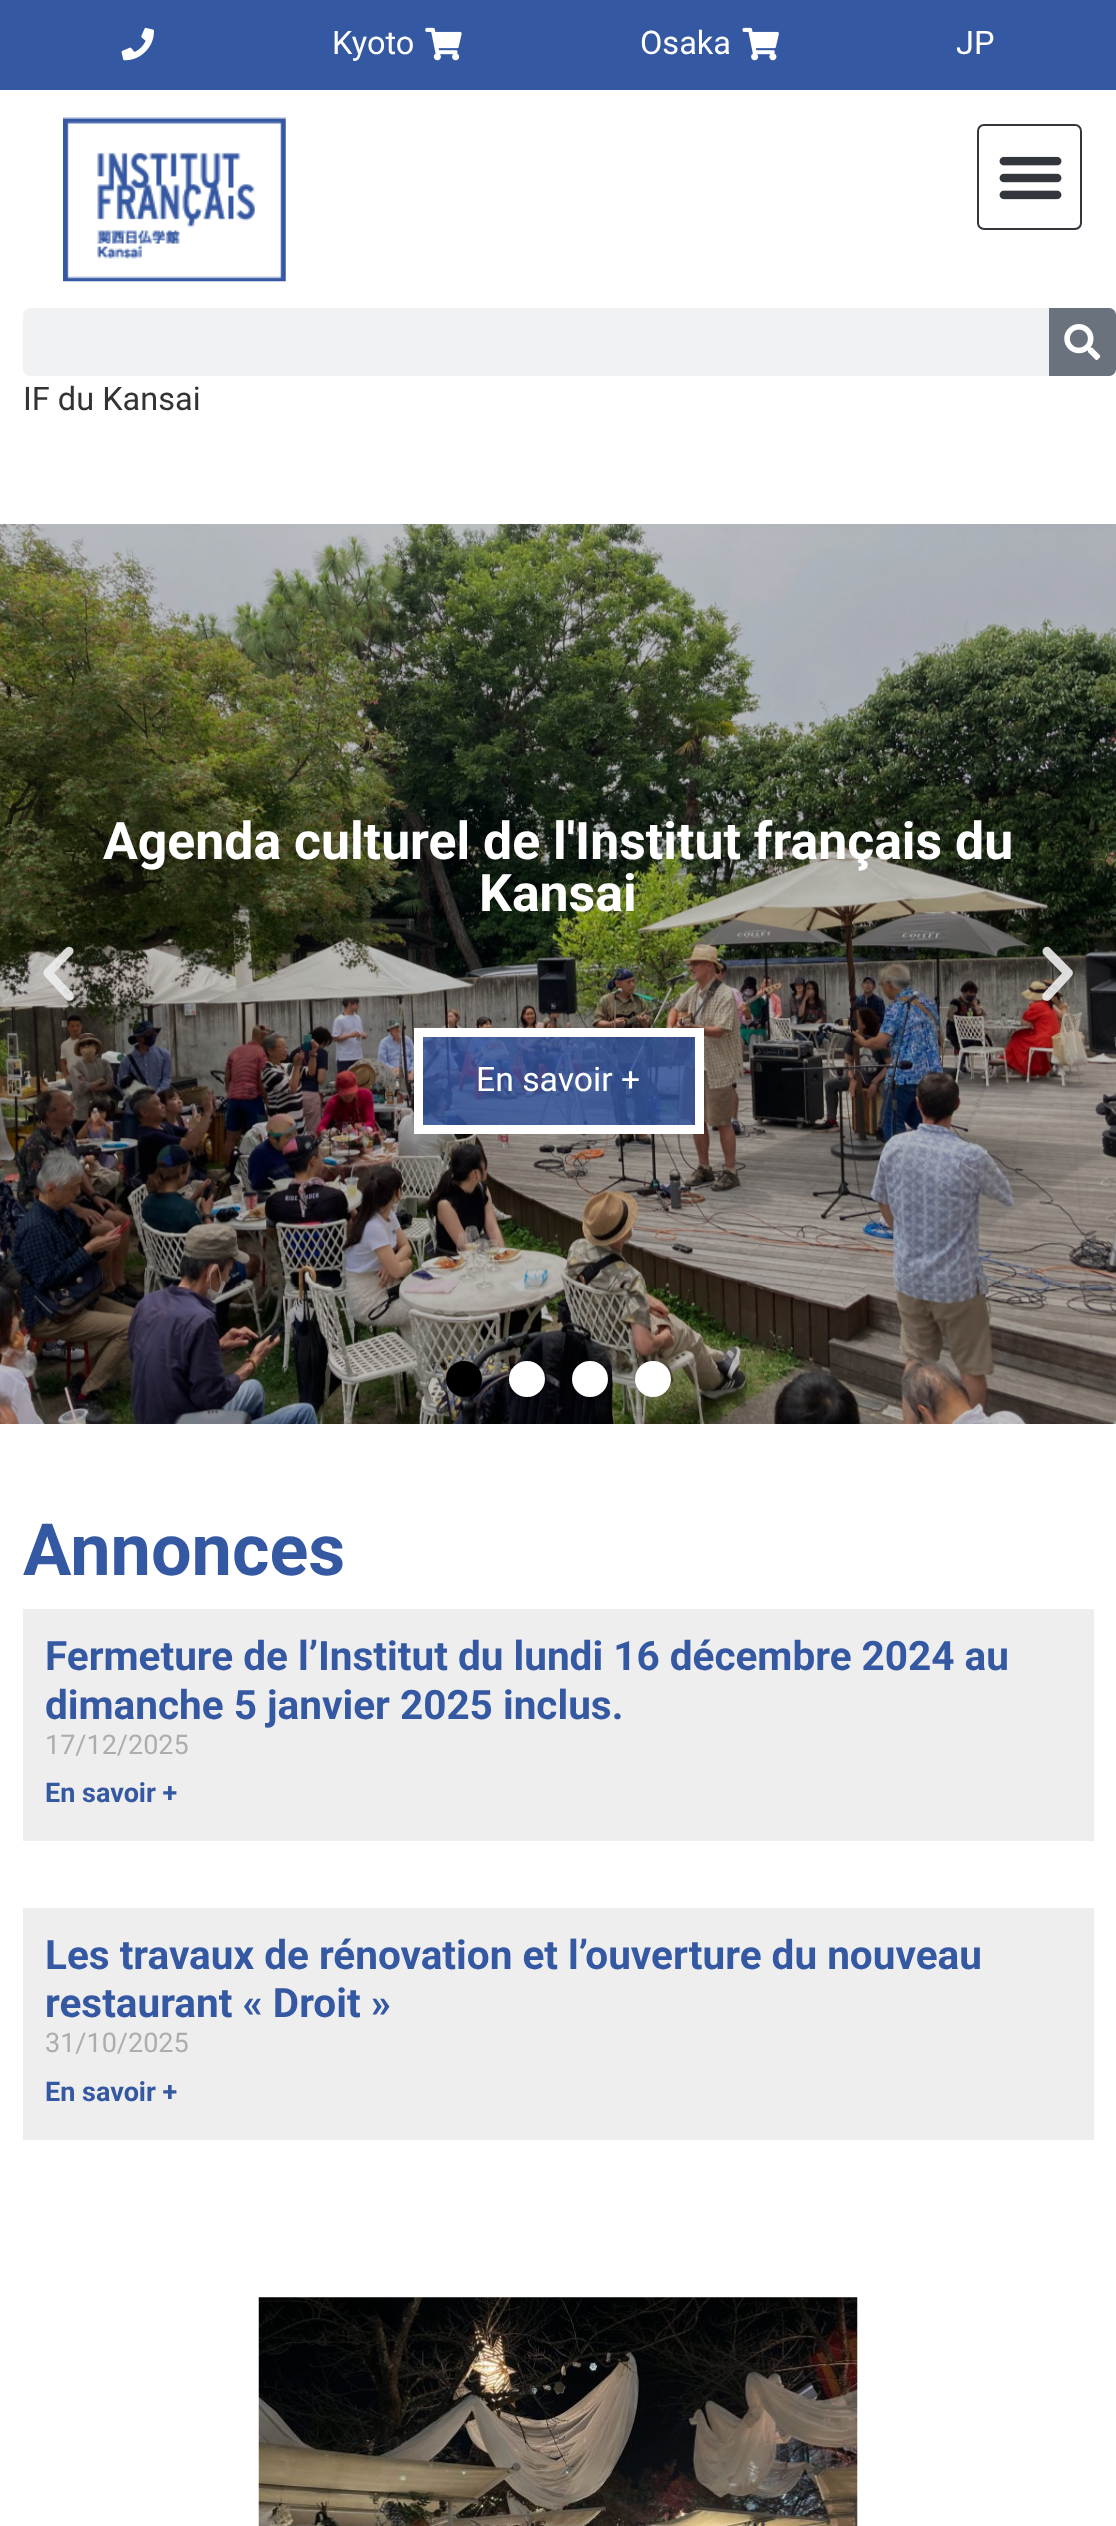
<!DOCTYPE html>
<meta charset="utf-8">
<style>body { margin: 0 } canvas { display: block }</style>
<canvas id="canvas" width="1116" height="2526"></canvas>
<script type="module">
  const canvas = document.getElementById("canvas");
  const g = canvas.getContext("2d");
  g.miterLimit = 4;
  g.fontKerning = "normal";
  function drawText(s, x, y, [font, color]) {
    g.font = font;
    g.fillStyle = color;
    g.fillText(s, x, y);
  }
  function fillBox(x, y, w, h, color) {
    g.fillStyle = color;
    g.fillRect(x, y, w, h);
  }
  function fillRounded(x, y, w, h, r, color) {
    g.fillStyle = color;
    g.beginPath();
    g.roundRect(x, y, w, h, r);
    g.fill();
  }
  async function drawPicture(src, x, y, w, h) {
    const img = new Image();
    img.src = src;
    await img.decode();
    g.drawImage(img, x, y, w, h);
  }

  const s1 = ["32.5px Roboto", "#FFFFFF"];
  const s2 = ["32.5px Roboto", "#333333"];
  const s3 = ["bold 51.75px Roboto", "#FFFFFF"];
  const s4 = ["33.75px Roboto", "#FFFFFF"];
  const s5 = ["bold 72px Roboto", "#3558A2"];
  const s6 = ["bold 40.5px Roboto", "#3558A2"];
  const s7 = ["27px Roboto", "#ADADAD"];
  const s8 = ["bold 27px Roboto", "#3558A2"];

  fillBox(0, 0, 1116, 2526, "#FFFFFF");
  fillBox(0, 0, 1116, 90, "#3558A2");
  await drawPicture("pic1.png", 121, 27, 33, 34);
  drawText("Kyoto", 332, 54, s1);
  await drawPicture("pic2.png", 425, 27, 37, 34);
  drawText("Osaka", 640, 54, s1);
  await drawPicture("pic3.png", 742, 27, 37, 34);
  drawText("JP", 956, 54, s1);
  await drawPicture("pic4.png", 63, 117, 223, 165);
  g.beginPath();
  g.roundRect(978, 125, 103, 104, 6);
  g.strokeStyle = "#33373D";
  g.lineWidth = 2;
  g.stroke();
  await drawPicture("pic5.png", 999, 156, 63, 44);
  fillRounded(23, 308, 1093, 68, 7, "#F1F2F3");
  g.fillStyle = "#69727D";
  g.beginPath();
  g.roundRect(1049, 308, 67, 68, [0, 7, 7, 0]);
  g.fill();
  await drawPicture("pic6.png", 1064, 324, 37, 36);
  drawText("IF du Kansai", 23, 410, s2);
  await drawPicture("pic8.png", 0, 524, 1116, 900);
  await drawPicture("pic7.png", 43, 946, 31, 55);
  drawText("Agenda culturel de l'Institut français du", 103, 859, s3);
  drawText("Kansai", 479, 911, s3);
  g.fillStyle = "rgba(53, 88, 162, 0.8)";
  g.beginPath();
  g.rect(418.5, 1032.5, 281, 97);
  g.fill();
  g.strokeStyle = "#FFFFFF";
  g.lineWidth = 9;
  g.stroke();
  drawText("En savoir +", 476, 1091, s4);
  await drawPicture("pic9.png", 1042, 946, 31, 55);
  g.fillStyle = "#000000";
  g.beginPath();
  g.arc(464, 1379, 18, 0, Math.PI * 2);
  g.fill();
  g.fillStyle = "#FFFFFF";
  g.beginPath();
  g.arc(527, 1379, 18, 0, Math.PI * 2);
  g.fill();
  g.beginPath();
  g.arc(590, 1379, 18, 0, Math.PI * 2);
  g.fill();
  g.beginPath();
  g.arc(653, 1379, 18, 0, Math.PI * 2);
  g.fill();
  drawText("Annonces", 23, 1575, s5);
  fillBox(23, 1609, 1071, 232, "#EEEEEE");
  drawText("Fermeture de l’Institut du lundi 16 décembre 2024 au", 45, 1670, s6);
  drawText("dimanche 5 janvier 2025 inclus.", 45, 1719, s6);
  drawText("17/12/2025", 45, 1754, s7);
  drawText("En savoir +", 45, 1802, s8);
  fillBox(23, 1908, 1071, 232, "#EEEEEE");
  drawText("Les travaux de rénovation et l’ouverture du nouveau", 45, 1969, s6);
  drawText("restaurant « Droit »", 45, 2017, s6);
  drawText("31/10/2025", 45, 2052, s7);
  drawText("En savoir +", 45, 2101, s8);
  await drawPicture("pic10.png", 258, 2297, 600, 229);
</script>
